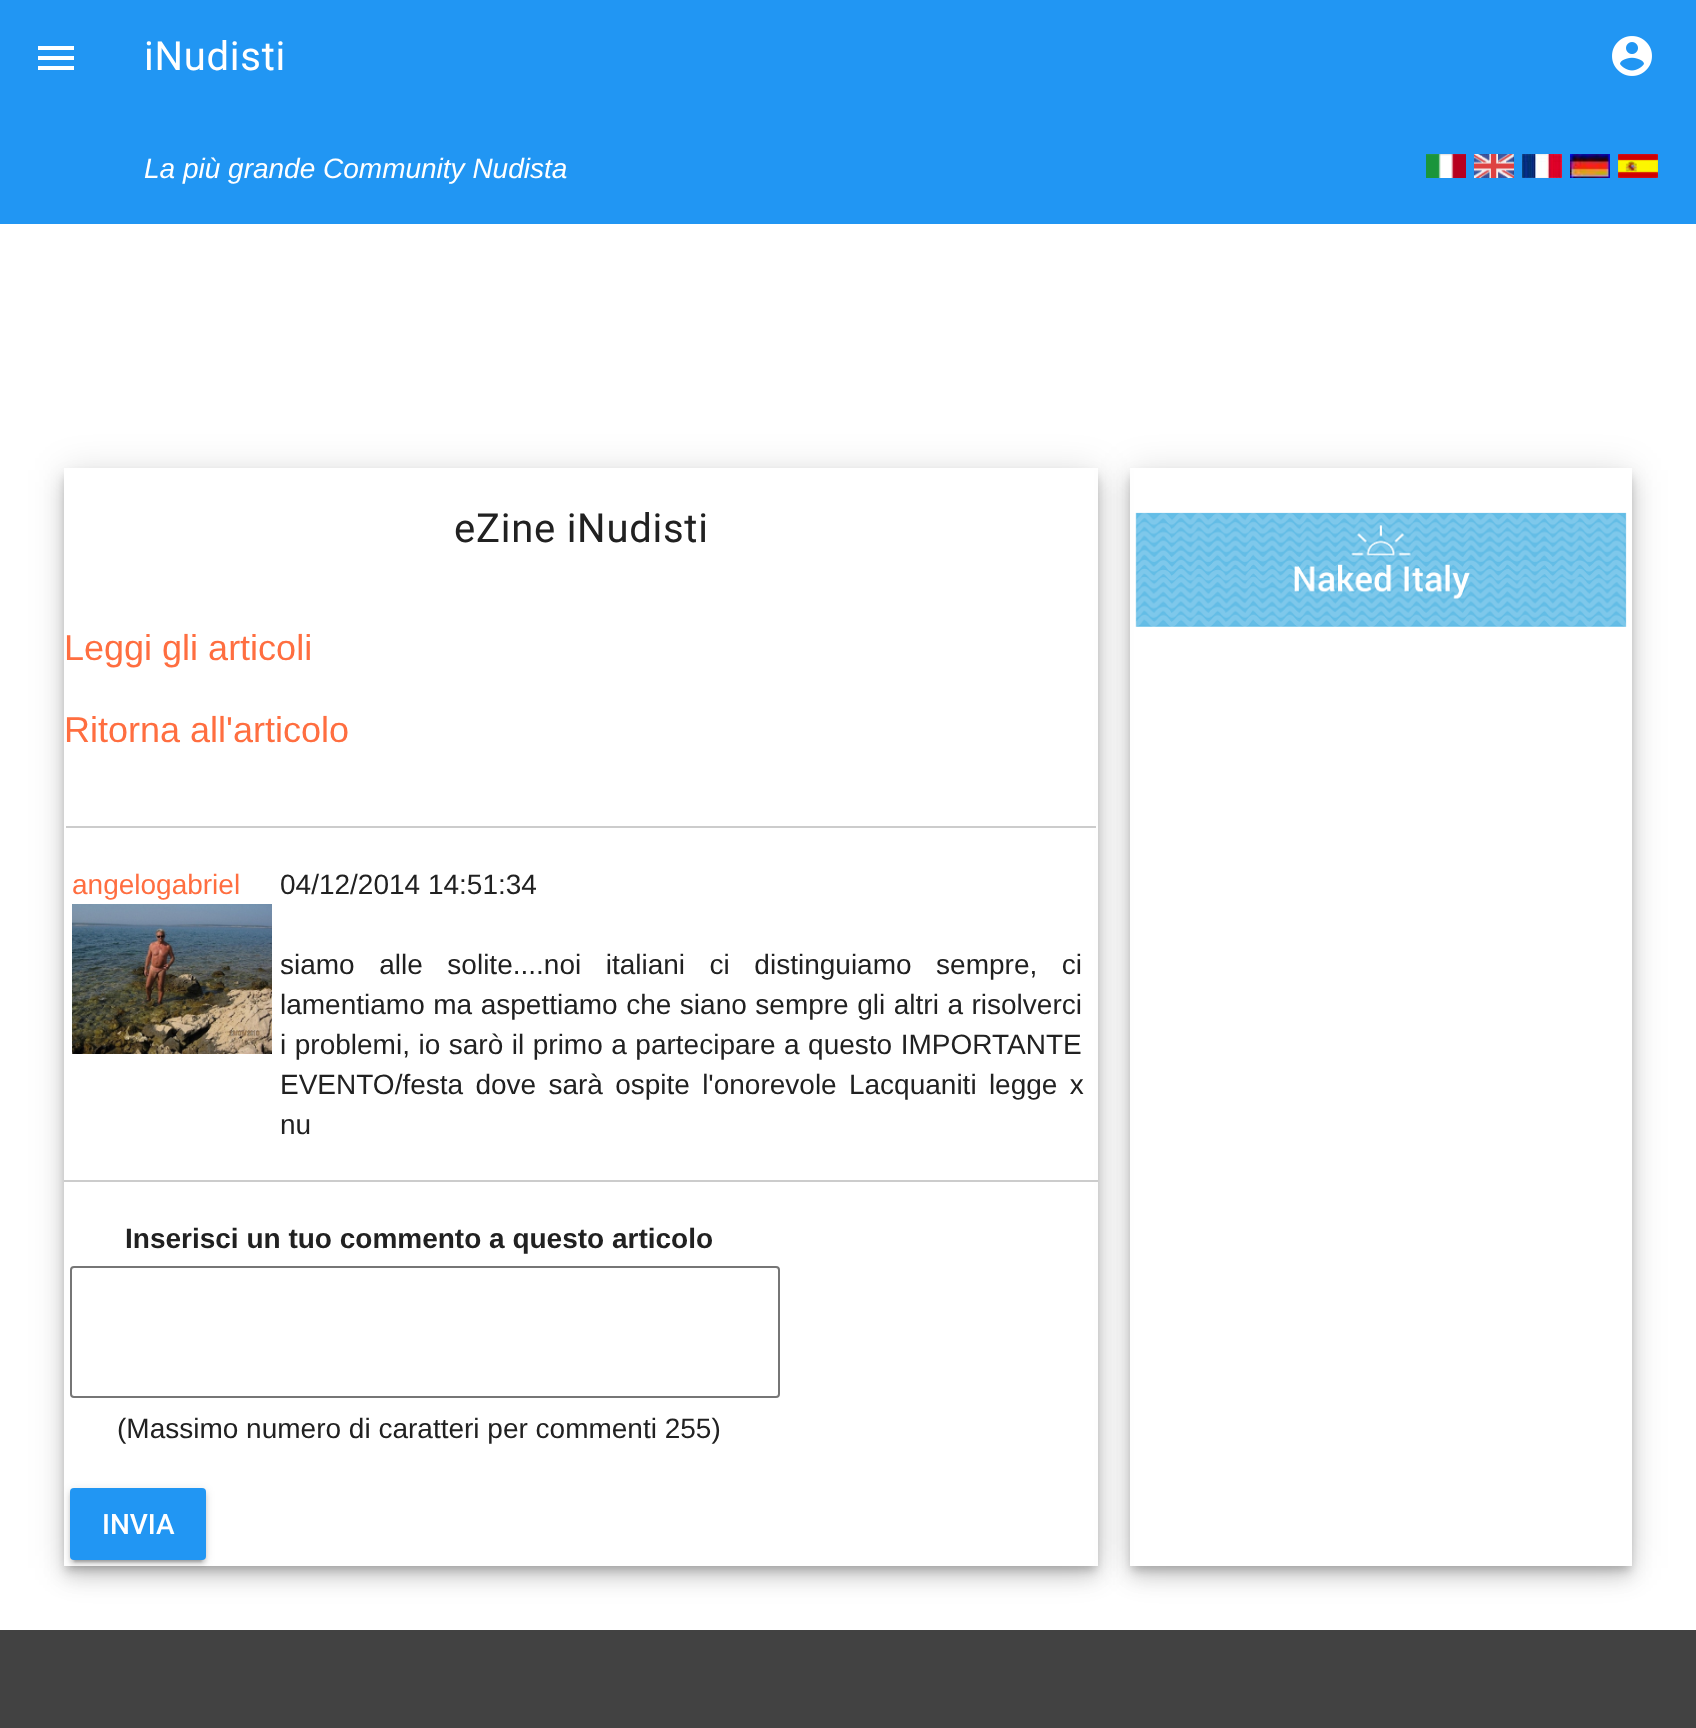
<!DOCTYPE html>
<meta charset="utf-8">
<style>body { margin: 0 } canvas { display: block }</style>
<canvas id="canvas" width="1696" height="1728"></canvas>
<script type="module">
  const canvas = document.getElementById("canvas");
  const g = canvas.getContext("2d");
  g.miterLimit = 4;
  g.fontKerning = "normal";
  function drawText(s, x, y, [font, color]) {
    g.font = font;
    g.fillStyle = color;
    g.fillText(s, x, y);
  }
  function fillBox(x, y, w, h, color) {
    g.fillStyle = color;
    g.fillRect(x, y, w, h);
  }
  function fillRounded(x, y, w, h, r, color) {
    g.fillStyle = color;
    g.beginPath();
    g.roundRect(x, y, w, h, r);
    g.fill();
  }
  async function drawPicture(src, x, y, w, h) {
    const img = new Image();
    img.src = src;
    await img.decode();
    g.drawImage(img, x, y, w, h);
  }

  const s1 = ["40px Roboto", "#FFFFFF"];
  const s2 = ["italic 28px Liberation Sans", "#FFFFFF"];
  const s3 = ["40px Roboto", "#212121"];
  const s4 = ["36px Liberation Sans", "#FF6E40"];
  const s5 = ["28px Liberation Sans", "#FF6E40"];
  const s6 = ["28px Liberation Sans", "#212121"];
  const s7 = ["bold 28px Liberation Sans", "#212121"];
  const s8 = ["500 28px Roboto", "#FFFFFF"];

  fillBox(0, 0, 1696, 1728, "#FFFFFF");
  fillBox(0, 0, 1696, 224, "#2196F3");
  g.fillStyle = "#FFFFFF";
  g.beginPath();
  g.moveTo(38, 46);
  g.lineTo(74, 46);
  g.lineTo(74, 50);
  g.lineTo(38, 50);
  g.closePath();
  g.moveTo(38, 60);
  g.lineTo(38, 56);
  g.lineTo(74, 56);
  g.lineTo(74, 60);
  g.closePath();
  g.moveTo(38, 70);
  g.lineTo(38, 66);
  g.lineTo(74, 66);
  g.lineTo(74, 70);
  g.closePath();
  g.fill();
  g.letterSpacing = "0.75px";
  drawText("iNudisti", 144, 70, s1);
  await drawPicture("pic1.png", 1612, 36, 40, 40);
  g.letterSpacing = "0px";
  drawText("La più grande Community Nudista", 144, 178, s2);
  await drawPicture("pic2.png", 1426, 154, 40, 24);
  await drawPicture("pic3.png", 1474, 154, 40, 24);
  await drawPicture("pic4.png", 1522, 154, 40, 24);
  await drawPicture("pic5.png", 1570, 154, 40, 24);
  await drawPicture("pic6.png", 1618, 154, 40, 24);
  g.save();
  g.beginPath();
  g.moveTo(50, 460);
  g.lineTo(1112, 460);
  g.lineTo(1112, 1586);
  g.lineTo(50, 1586);
  g.closePath();
  g.moveTo(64, 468);
  g.lineTo(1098, 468);
  g.lineTo(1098, 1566);
  g.lineTo(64, 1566);
  g.closePath();
  g.clip("evenodd");
  g.fillStyle = "rgba(0, 0, 0, 0.2)";
  g.filter = "blur(5px)";
  g.beginPath();
  g.rect(66, 476, 1030, 1094);
  g.fill();
  g.filter = "none";
  g.restore();
  g.save();
  g.beginPath();
  g.moveTo(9, 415);
  g.lineTo(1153, 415);
  g.lineTo(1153, 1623);
  g.lineTo(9, 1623);
  g.closePath();
  g.moveTo(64, 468);
  g.lineTo(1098, 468);
  g.lineTo(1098, 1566);
  g.lineTo(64, 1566);
  g.closePath();
  g.clip("evenodd");
  g.fillStyle = "rgba(0, 0, 0, 0.12)";
  g.filter = "blur(18px)";
  g.beginPath();
  g.rect(64, 470, 1034, 1098);
  g.fill();
  g.filter = "none";
  g.restore();
  g.save();
  g.beginPath();
  g.moveTo(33, 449);
  g.lineTo(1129, 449);
  g.lineTo(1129, 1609);
  g.lineTo(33, 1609);
  g.closePath();
  g.moveTo(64, 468);
  g.lineTo(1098, 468);
  g.lineTo(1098, 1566);
  g.lineTo(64, 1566);
  g.closePath();
  g.clip("evenodd");
  g.fillStyle = "rgba(0, 0, 0, 0.14)";
  g.filter = "blur(10px)";
  g.beginPath();
  g.rect(64, 480, 1034, 1098);
  g.fill();
  g.filter = "none";
  g.restore();
  g.letterSpacing = "0.75px";
  drawText("eZine iNudisti", 454, 542, s3);
  g.letterSpacing = "0px";
  drawText("Leggi gli articoli", 64, 660, s4);
  drawText("Ritorna all'articolo", 64, 742, s4);
  g.save();
  g.beginPath();
  g.moveTo(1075, 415);
  g.lineTo(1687, 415);
  g.lineTo(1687, 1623);
  g.lineTo(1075, 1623);
  g.closePath();
  g.moveTo(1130, 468);
  g.lineTo(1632, 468);
  g.lineTo(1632, 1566);
  g.lineTo(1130, 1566);
  g.closePath();
  g.clip("evenodd");
  g.fillStyle = "rgba(0, 0, 0, 0.12)";
  g.filter = "blur(18px)";
  g.beginPath();
  g.rect(1130, 470, 502, 1098);
  g.fill();
  g.filter = "none";
  g.restore();
  fillBox(66, 826, 1030, 2, "#CCCCCC");
  drawText("angelogabriel", 72, 894, s5);
  await drawPicture("pic7.png", 72, 904, 200, 150);
  drawText("04/12/2014 14:51:34", 280, 894, s6);
  g.wordSpacing = "16.75px";
  drawText("siamo alle solite....noi italiani ci distinguiamo sempre, ci", 280, 974, s6);
  g.wordSpacing = "0.75px";
  drawText("lamentiamo ma aspettiamo che siano sempre gli altri a risolverci", 280, 1014, s6);
  drawText("i problemi, io sarò il primo a partecipare a questo IMPORTANTE", 280, 1054, s6);
  g.wordSpacing = "4.5px";
  drawText("EVENTO/festa dove sarà ospite l'onorevole Lacquaniti legge x", 280, 1094, s6);
  g.wordSpacing = "0px";
  drawText("nu", 280, 1134, s6);
  fillBox(64, 1180, 1034, 2, "#CCCCCC");
  drawText("Inserisci un tuo commento a questo articolo", 125, 1248, s7);
  g.beginPath();
  g.roundRect(71, 1267, 708, 130, 3);
  g.strokeStyle = "#767676";
  g.lineWidth = 2;
  g.stroke();
  drawText("(Massimo numero di caratteri per commenti 255)", 117, 1438, s6);
  g.fillStyle = "rgba(0, 0, 0, 0.12)";
  g.filter = "blur(5px)";
  g.beginPath();
  g.roundRect(70, 1490, 136, 72, 4);
  g.fill();
  g.filter = "none";
  g.fillStyle = "rgba(0, 0, 0, 0.2)";
  g.filter = "blur(1px)";
  g.beginPath();
  g.rect(74, 1498, 128, 64);
  g.fill();
  g.filter = "none";
  g.fillStyle = "rgba(0, 0, 0, 0.14)";
  g.filter = "blur(2px)";
  g.beginPath();
  g.roundRect(70, 1492, 136, 72, 4);
  g.fill();
  g.filter = "none";
  fillRounded(70, 1488, 136, 72, 4, "#2196F3");
  drawText("INVIA", 102, 1534, s8);
  g.save();
  g.beginPath();
  g.moveTo(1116, 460);
  g.lineTo(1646, 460);
  g.lineTo(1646, 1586);
  g.lineTo(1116, 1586);
  g.closePath();
  g.moveTo(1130, 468);
  g.lineTo(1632, 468);
  g.lineTo(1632, 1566);
  g.lineTo(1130, 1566);
  g.closePath();
  g.clip("evenodd");
  g.fillStyle = "rgba(0, 0, 0, 0.2)";
  g.filter = "blur(5px)";
  g.beginPath();
  g.rect(1132, 476, 498, 1094);
  g.fill();
  g.filter = "none";
  g.restore();
  g.save();
  g.beginPath();
  g.moveTo(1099, 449);
  g.lineTo(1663, 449);
  g.lineTo(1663, 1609);
  g.lineTo(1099, 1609);
  g.closePath();
  g.moveTo(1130, 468);
  g.lineTo(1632, 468);
  g.lineTo(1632, 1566);
  g.lineTo(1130, 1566);
  g.closePath();
  g.clip("evenodd");
  g.fillStyle = "rgba(0, 0, 0, 0.14)";
  g.filter = "blur(10px)";
  g.beginPath();
  g.rect(1130, 480, 502, 1098);
  g.fill();
  g.filter = "none";
  g.restore();
  await drawPicture("pic8.png", 1135, 512, 492, 115);
  fillBox(0, 1630, 1696, 98, "#424242");
</script>
